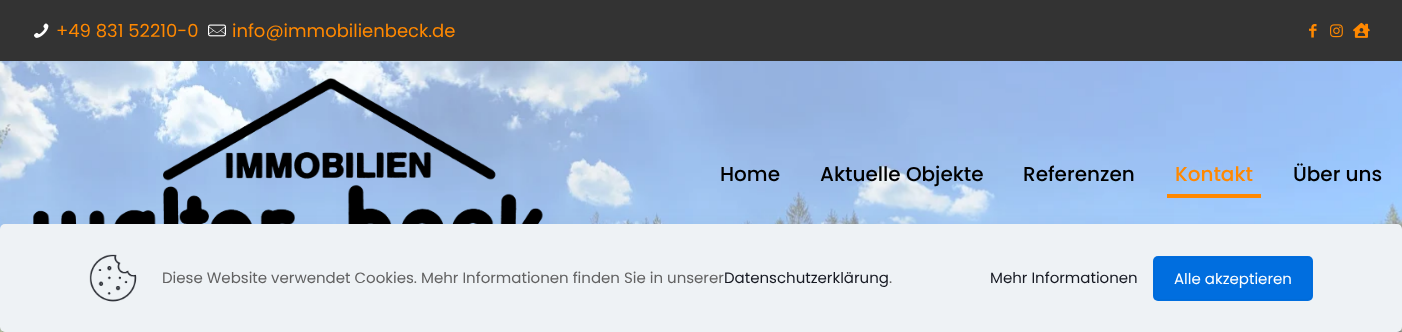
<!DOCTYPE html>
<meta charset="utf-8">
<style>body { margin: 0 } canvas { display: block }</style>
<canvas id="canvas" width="1402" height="332"></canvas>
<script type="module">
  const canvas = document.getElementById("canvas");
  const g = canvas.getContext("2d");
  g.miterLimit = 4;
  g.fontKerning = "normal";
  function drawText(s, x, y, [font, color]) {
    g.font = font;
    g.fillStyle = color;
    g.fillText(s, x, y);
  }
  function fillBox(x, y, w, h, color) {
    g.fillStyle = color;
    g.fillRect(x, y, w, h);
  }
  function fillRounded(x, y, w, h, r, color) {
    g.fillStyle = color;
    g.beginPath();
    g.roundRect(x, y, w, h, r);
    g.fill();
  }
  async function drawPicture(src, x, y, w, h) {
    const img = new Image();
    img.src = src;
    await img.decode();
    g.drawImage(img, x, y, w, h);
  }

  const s1 = ["18px Poppins", "#FF8800"];
  const s2 = ["500 20px Poppins", "#000000"];
  const s3 = ["500 20px Poppins", "#FF8800"];
  const s4 = ["15px Poppins", "#626262"];
  const s5 = ["15px Poppins", "#161922"];
  const s6 = ["15px Poppins", "#FFFFFF"];

  fillBox(0, 0, 1402, 332, "#FFFFFF");
  await drawPicture("pic1.png", 0, 61, 1402, 271);
  fillBox(0, 0, 1402, 61, "#333333");
  await drawPicture("pic2.png", 34, 23, 15, 15);
  drawText("+49 831 52210-0", 56, 37, s1);
  await drawPicture("pic3.png", 208, 24, 18, 13);
  drawText("info@immobilienbeck.de", 232, 37, s1);
  await drawPicture("pic4.png", 1309, 24, 8, 14);
  await drawPicture("pic5.png", 1330, 24, 13, 14);
  await drawPicture("pic6.png", 1353, 22, 17, 16);
  await drawPicture("pic7.png", 33, 78, 510, 146);
  drawText("Home", 720, 181, s2);
  drawText("Aktuelle Objekte", 820, 181, s2);
  drawText("Referenzen", 1023, 181, s2);
  drawText("Kontakt", 1175, 181, s3);
  fillBox(1167, 194, 94, 4, "#FF8800");
  drawText("Über uns", 1293, 181, s2);
  g.fillStyle = "rgba(1, 7, 39, 0.13)";
  g.filter = "blur(15px)";
  g.beginPath();
  g.roundRect(0, 239, 1402, 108, 5);
  g.fill();
  g.filter = "none";
  fillRounded(0, 224, 1402, 108, 5, "#EEF2F5");
  await drawPicture("pic8.png", 89, 254, 48, 48);
  drawText("Diese Website verwendet Cookies. Mehr Informationen finden Sie in unserer", 162, 283, s4);
  drawText("Datenschutzerklärung", 724, 283, s5);
  drawText(".", 889, 283, s4);
  drawText("Mehr Informationen", 990, 283, s5);
  fillRounded(1153, 256, 160, 45, 5, "#006EDF");
  g.beginPath();
  g.roundRect(1154.5, 257.5, 157, 42, 3.5);
  g.strokeStyle = "#006BD8";
  g.stroke();
  drawText("Alle akzeptieren", 1174, 284, s6);
</script>
